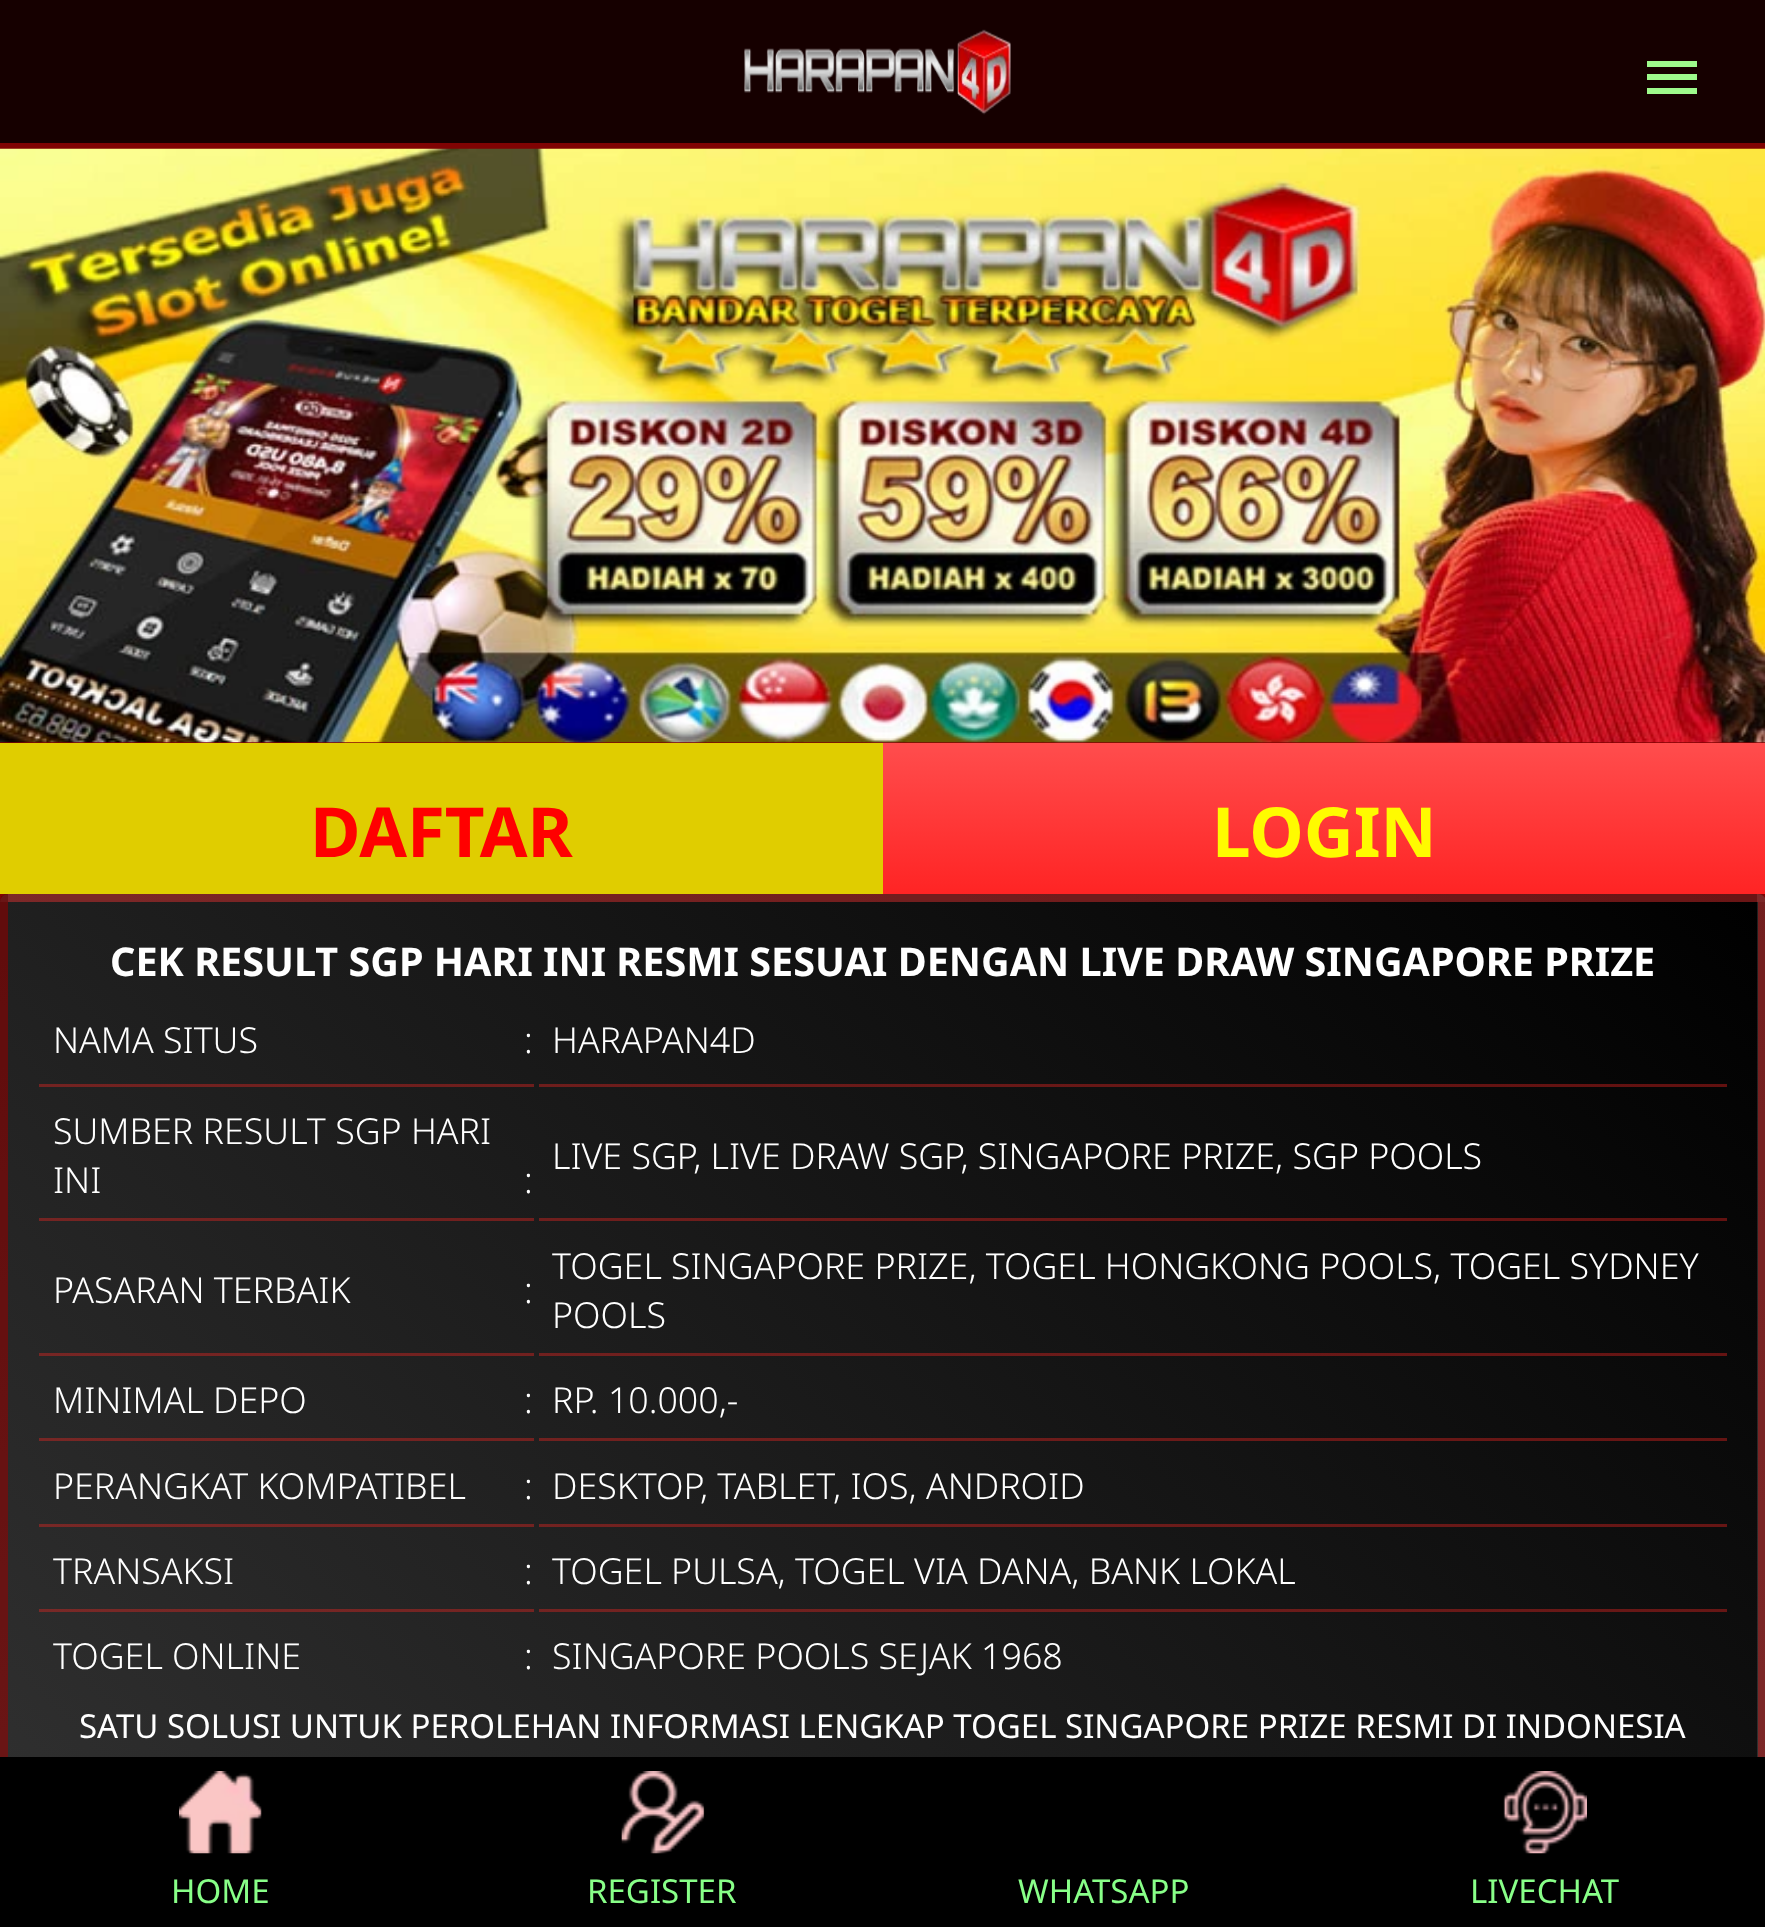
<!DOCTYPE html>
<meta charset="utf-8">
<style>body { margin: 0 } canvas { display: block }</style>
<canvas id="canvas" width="1765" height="1927"></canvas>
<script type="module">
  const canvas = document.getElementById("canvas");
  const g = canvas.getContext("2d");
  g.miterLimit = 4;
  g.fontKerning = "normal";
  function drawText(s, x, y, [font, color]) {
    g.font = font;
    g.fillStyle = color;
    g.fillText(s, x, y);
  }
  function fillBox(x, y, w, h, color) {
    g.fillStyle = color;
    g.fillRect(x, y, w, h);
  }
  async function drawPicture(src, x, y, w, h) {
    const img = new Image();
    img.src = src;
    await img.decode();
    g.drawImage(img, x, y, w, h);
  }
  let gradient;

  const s1 = ["bold 69px Noto Sans", "#FF0000"];
  const s2 = ["bold 69px Noto Sans", "#FFFB00"];
  const s3 = ["bold 39.6px Noto Sans", "#FFFFFF"];
  const s4 = ["300 35.75px Noto Sans", "#FFFFFF"];
  const s5 = ["33px Noto Sans", "#FFFFFF"];
  const s6 = ["33px Noto Sans", "#88FF88"];

  fillBox(0, 0, 1765, 1927, "#800303");
  fillBox(0, 0, 1765, 143, "#160000");
  await drawPicture("pic1.png", 744, 29, 267, 86);
  fillBox(1647, 74, 50, 6, "#9EFA8C");
  fillBox(1647, 61, 50, 6, "#9EFA8C");
  fillBox(1647, 88, 50, 6, "#9EFA8C");
  await drawPicture("pic2.png", 0, 148, 1765, 595);
  fillBox(0, 743, 883, 151, "#E0CD00");
  drawText("DAFTAR", 310, 857, s1);
  gradient = g.createLinearGradient(1324, 743, 1324, 894);
  gradient.addColorStop(0, "#FF4D4D");
  gradient.addColorStop(1, "#FF2424");
  g.fillStyle = gradient;
  g.fillRect(883, 743, 882, 151);
  drawText("LOGIN", 1212, 857, s2);
  gradient = g.createLinearGradient(-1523, 1119, -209, -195);
  gradient.addColorStop(0, "#2F2F2F");
  gradient.addColorStop(1, "#000000");
  g.fillStyle = gradient;
  g.beginPath();
  g.roundRect(0, 894, 8, 8, [8, 0, 0, 0]);
  g.fill();
  gradient = g.createLinearGradient(226, 1119, 1540, -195);
  gradient.addColorStop(0, "#2F2F2F");
  gradient.addColorStop(1, "#000000");
  g.fillStyle = gradient;
  g.fillRect(8, 894, 1749, 8);
  gradient = g.createLinearGradient(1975, 1119, 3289, -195);
  gradient.addColorStop(0, "#2F2F2F");
  gradient.addColorStop(1, "#000000");
  g.fillStyle = gradient;
  g.beginPath();
  g.moveTo(1757, 894);
  g.lineTo(1758, 894);
  g.bezierCurveTo(1762.5, 894, 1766, 897.5, 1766, 902);
  g.lineTo(1757, 902);
  g.closePath();
  g.fill();
  gradient = g.createLinearGradient(-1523, 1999, -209, 685);
  gradient.addColorStop(0, "#2F2F2F");
  gradient.addColorStop(1, "#000000");
  g.fillStyle = gradient;
  g.fillRect(0, 902, 8, 855);
  gradient = g.createLinearGradient(226, 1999, 1540, 685);
  gradient.addColorStop(0, "#2F2F2F");
  gradient.addColorStop(1, "#000000");
  g.fillStyle = gradient;
  g.fillRect(8, 902, 1749, 855);
  gradient = g.createLinearGradient(226, 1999, 1540, 685);
  gradient.addColorStop(0, "#7B2B29");
  gradient.addColorStop(1, "#5F0E0D");
  g.fillStyle = gradient;
  g.fillRect(539, 1609, 1188, 3);
  g.fillRect(39, 1609, 495, 3);
  g.fillRect(539, 1524, 1188, 3);
  g.fillRect(39, 1524, 495, 3);
  g.fillRect(539, 1438, 1188, 3);
  g.fillRect(39, 1438, 495, 3);
  g.fillRect(539, 1353, 1188, 3);
  g.fillRect(39, 1353, 495, 3);
  g.fillRect(539, 1218, 1188, 3);
  g.fillRect(39, 1218, 495, 3);
  g.fillRect(539, 1084, 1188, 3);
  g.fillRect(39, 1084, 495, 3);
  gradient = g.createLinearGradient(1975, 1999, 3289, 685);
  gradient.addColorStop(0, "#2F2F2F");
  gradient.addColorStop(1, "#000000");
  g.fillStyle = gradient;
  g.fillRect(1757, 902, 8, 855);
  g.beginPath();
  g.roundRect(4, 898, 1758, 888, 4);
  g.strokeStyle = "rgba(243, 30, 30, 0.4)";
  g.lineWidth = 8;
  g.stroke();
  drawText("CEK RESULT SGP HARI INI RESMI SESUAI DENGAN LIVE DRAW SINGAPORE PRIZE", 110, 976, s3);
  drawText("NAMA SITUS", 53, 1053, s4);
  drawText(":", 524, 1053, s4);
  drawText("HARAPAN4D", 552, 1053, s4);
  drawText("SUMBER RESULT SGP HARI", 53, 1144, s4);
  drawText("INI", 53, 1193, s4);
  drawText(":", 524, 1193, s4);
  drawText("LIVE SGP, LIVE DRAW SGP, SINGAPORE PRIZE, SGP POOLS", 552, 1169, s4);
  drawText("PASARAN TERBAIK", 53, 1303, s4);
  drawText(":", 524, 1303, s4);
  drawText("TOGEL SINGAPORE PRIZE, TOGEL HONGKONG POOLS, TOGEL SYDNEY", 552, 1279, s4);
  drawText("POOLS", 552, 1328, s4);
  drawText("MINIMAL DEPO", 53, 1413, s4);
  drawText(":", 524, 1413, s4);
  drawText("RP. 10.000,-", 552, 1413, s4);
  drawText("PERANGKAT KOMPATIBEL", 53, 1499, s4);
  drawText(":", 524, 1499, s4);
  drawText("DESKTOP, TABLET, IOS, ANDROID", 552, 1499, s4);
  drawText("TRANSAKSI", 53, 1584, s4);
  drawText(":", 524, 1584, s4);
  drawText("TOGEL PULSA, TOGEL VIA DANA, BANK LOKAL", 552, 1584, s4);
  drawText("TOGEL ONLINE", 53, 1669, s4);
  drawText(":", 524, 1669, s4);
  drawText("SINGAPORE POOLS SEJAK 1968", 552, 1669, s4);
  drawText("SATU SOLUSI UNTUK PEROLEHAN INFORMASI LENGKAP TOGEL SINGAPORE PRIZE RESMI DI INDONESIA", 79, 1738, s5);
  fillBox(0, 1757, 1765, 170, "#000000");
  await drawPicture("pic3.png", 179, 1771, 83, 83);
  drawText("HOME", 171, 1903, s6);
  await drawPicture("pic4.png", 621, 1771, 84, 83);
  drawText("REGISTER", 587, 1903, s6);
  drawText("WHATSAPP", 1018, 1903, s6);
  await drawPicture("pic5.png", 1503, 1771, 84, 83);
  drawText("LIVECHAT", 1470, 1903, s6);
</script>
